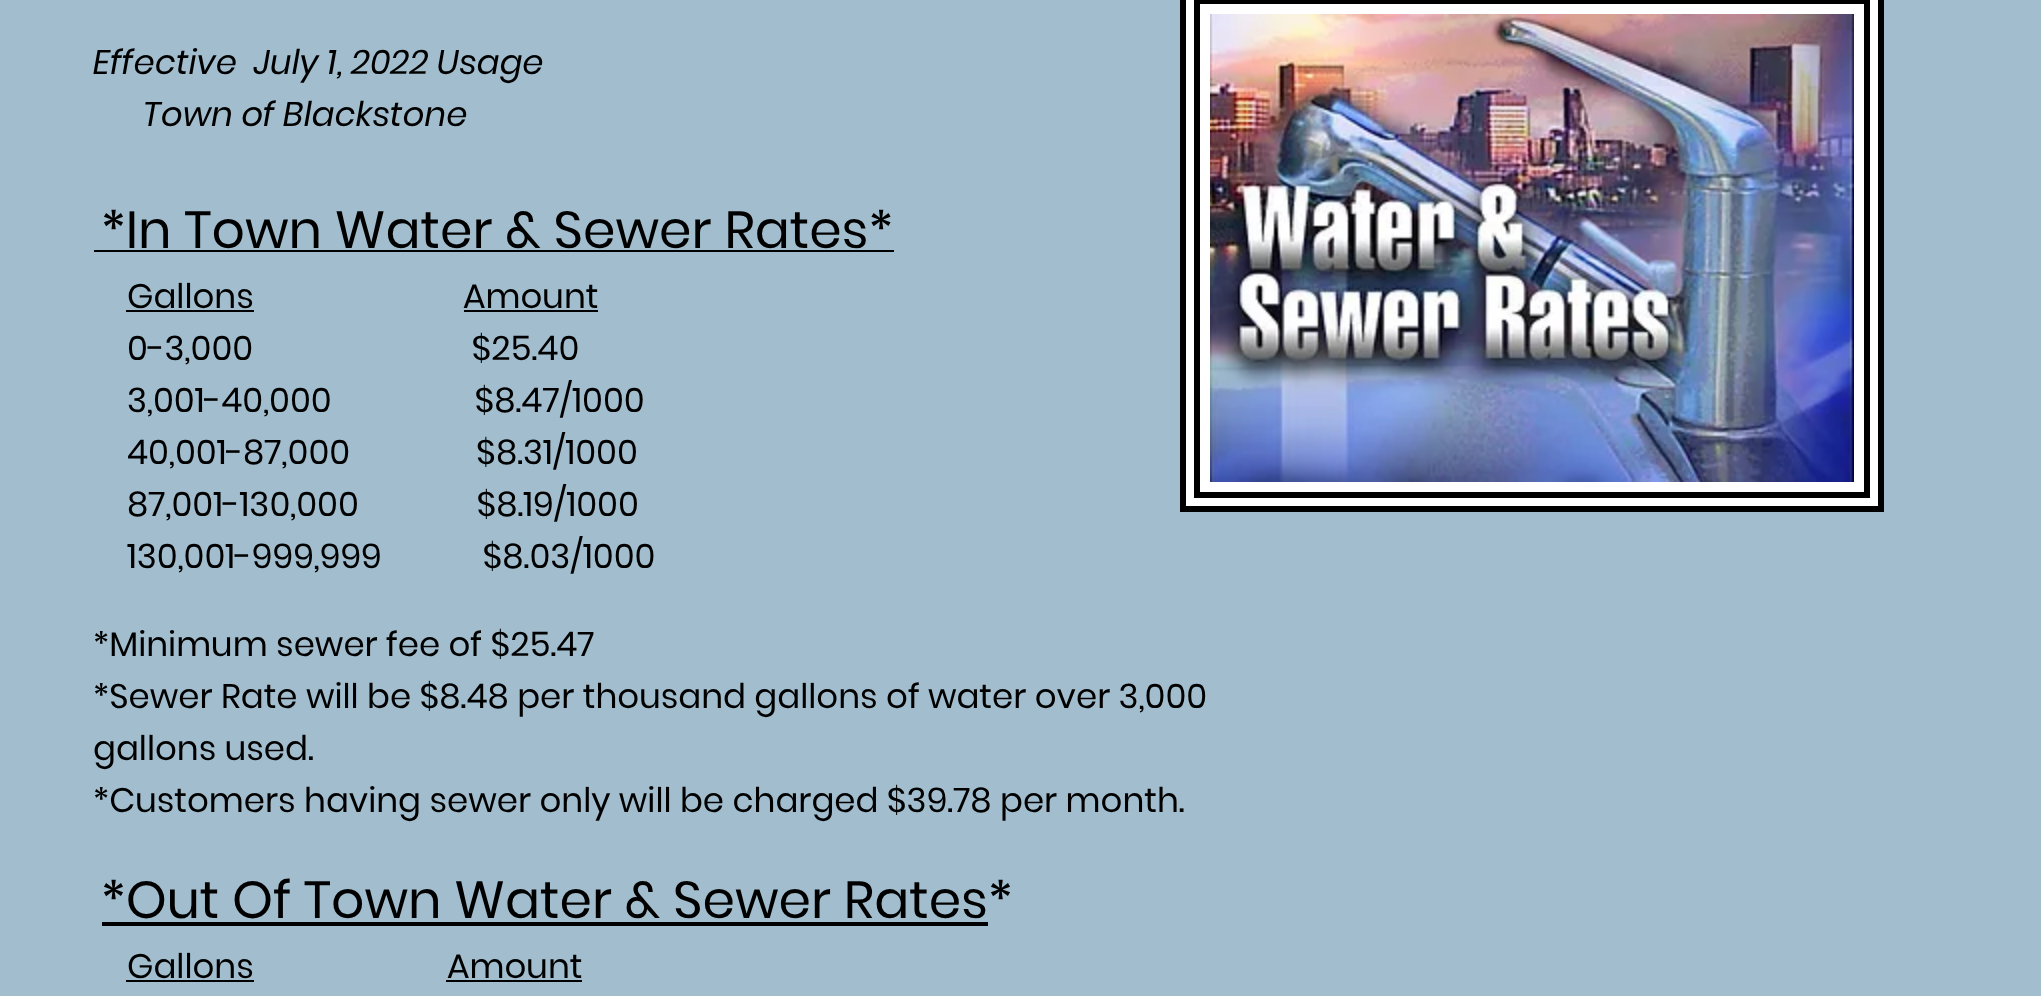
<!DOCTYPE html>
<meta charset="utf-8">
<style>body { margin: 0 } canvas { display: block }</style>
<canvas id="canvas" width="2041" height="996"></canvas>
<script type="module">
  const canvas = document.getElementById("canvas");
  const g = canvas.getContext("2d");
  g.miterLimit = 4;
  g.fontKerning = "normal";
  function drawText(s, x, y, [font, color]) {
    g.font = font;
    g.fillStyle = color;
    g.fillText(s, x, y);
  }
  function fillBox(x, y, w, h, color) {
    g.fillStyle = color;
    g.fillRect(x, y, w, h);
  }
  async function drawPicture(src, x, y, w, h) {
    const img = new Image();
    img.src = src;
    await img.decode();
    g.drawImage(img, x, y, w, h);
  }

  const s1 = ["italic 34px Poppins", "#000000"];
  const s2 = ["52px Poppins", "#000000"];
  const s3 = ["34px Poppins", "#000000"];

  fillBox(0, 0, 2041, 996, "#A2BECE");
  drawText("Effective  July 1, 2022 Usage", 93, 74, s1);
  drawText("Town of Blackstone", 143, 126, s1);
  drawText("*In Town Water & Sewer Rates*", 101, 248, s2);
  fillBox(94, 250, 800, 2, "#000000");
  drawText("Gallons", 127, 308, s3);
  fillBox(126, 310, 128, 2, "#000000");
  drawText("Amount", 463, 308, s3);
  fillBox(464, 310, 134, 2, "#000000");
  drawText("0-3,000                          $25.40", 127, 360, s3);
  drawText("3,001-40,000                 $8.47/1000", 127, 412, s3);
  drawText("40,001-87,000               $8.31/1000", 127, 464, s3);
  drawText("87,001-130,000              $8.19/1000", 127, 516, s3);
  drawText("130,001-999,999            $8.03/1000", 127, 568, s3);
  drawText("*Minimum sewer fee of $25.47", 93, 656, s3);
  drawText("*Sewer Rate will be $8.48 per thousand gallons of water over 3,000", 93, 708, s3);
  drawText("gallons used.", 93, 760, s3);
  drawText("*Customers having sewer only will be charged $39.78 per month.", 93, 812, s3);
  drawText("*Out Of Town Water & Sewer Rates*", 101, 918, s2);
  fillBox(102, 922, 886, 4, "#000000");
  drawText("Gallons", 127, 978, s3);
  fillBox(126, 980, 128, 2, "#000000");
  drawText("Amount", 447, 978, s3);
  fillBox(446, 980, 136, 2, "#000000");
  g.fillStyle = "#FFFFFF";
  g.beginPath();
  g.rect(1183, -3, 698, 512);
  g.fill();
  g.strokeStyle = "#000000";
  g.lineWidth = 6;
  g.stroke();
  await drawPicture("pic1.png", 1210, 14, 644, 468);
  g.strokeRect(1197, 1, 670, 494);
</script>
